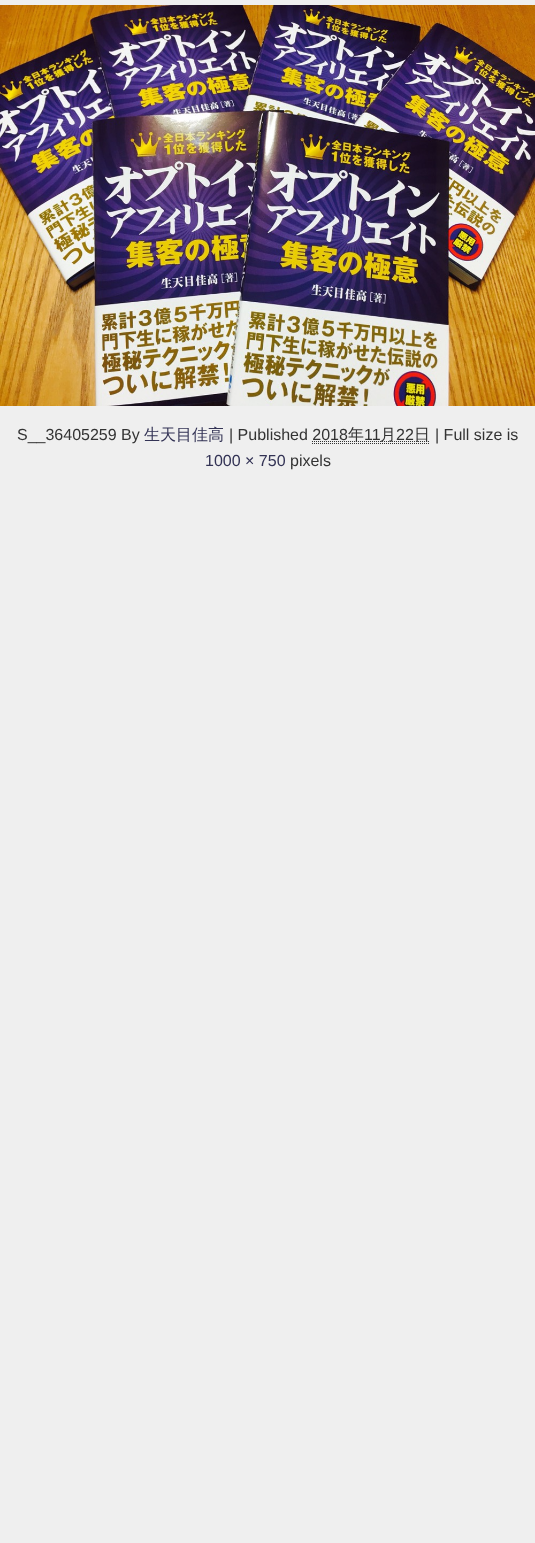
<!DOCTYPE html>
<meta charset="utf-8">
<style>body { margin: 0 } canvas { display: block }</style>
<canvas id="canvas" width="535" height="1543"></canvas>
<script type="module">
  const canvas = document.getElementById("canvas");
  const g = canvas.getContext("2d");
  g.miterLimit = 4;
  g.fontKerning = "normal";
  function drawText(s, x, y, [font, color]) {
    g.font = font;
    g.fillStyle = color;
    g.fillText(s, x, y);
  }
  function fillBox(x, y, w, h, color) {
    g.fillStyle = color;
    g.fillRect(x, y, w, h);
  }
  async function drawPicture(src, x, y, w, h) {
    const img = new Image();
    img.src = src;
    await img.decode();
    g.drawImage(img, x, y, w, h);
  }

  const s1 = ["16px Liberation Sans", "#333333"];
  const s2 = ["500 16px WenQuanYi Zen Hei", "#333355"];
  const s3 = ["500 16px WenQuanYi Zen Hei", "#333333"];
  const s4 = ["16px Liberation Sans", "#333355"];

  fillBox(0, 0, 535, 1543, "#EFEFEF");
  await drawPicture("pic1.png", 0, 5, 535, 401);
  drawText("S__36405259 By", 17, 440, s1);
  drawText("生天目佳高", 144, 440, s2);
  drawText("| Published 2018", 229, 440, s1);
  g.beginPath();
  g.moveTo(312, 441.5);
  g.lineTo(430, 441.5);
  g.strokeStyle = "#333333";
  g.setLineDash([1, 1]);
  g.stroke();
  drawText("年", 348, 440, s3);
  drawText("11", 364, 440, s1);
  drawText("月", 380, 440, s3);
  g.beginPath();
  g.moveTo(312, 443.5);
  g.lineTo(430, 443.5);
  g.stroke();
  drawText("22", 396, 440, s1);
  drawText("日", 414, 440, s3);
  drawText("| Full size is", 435, 440, s1);
  drawText("1000 × 750", 205, 466, s4);
  drawText("pixels", 290, 466, s1);
</script>
